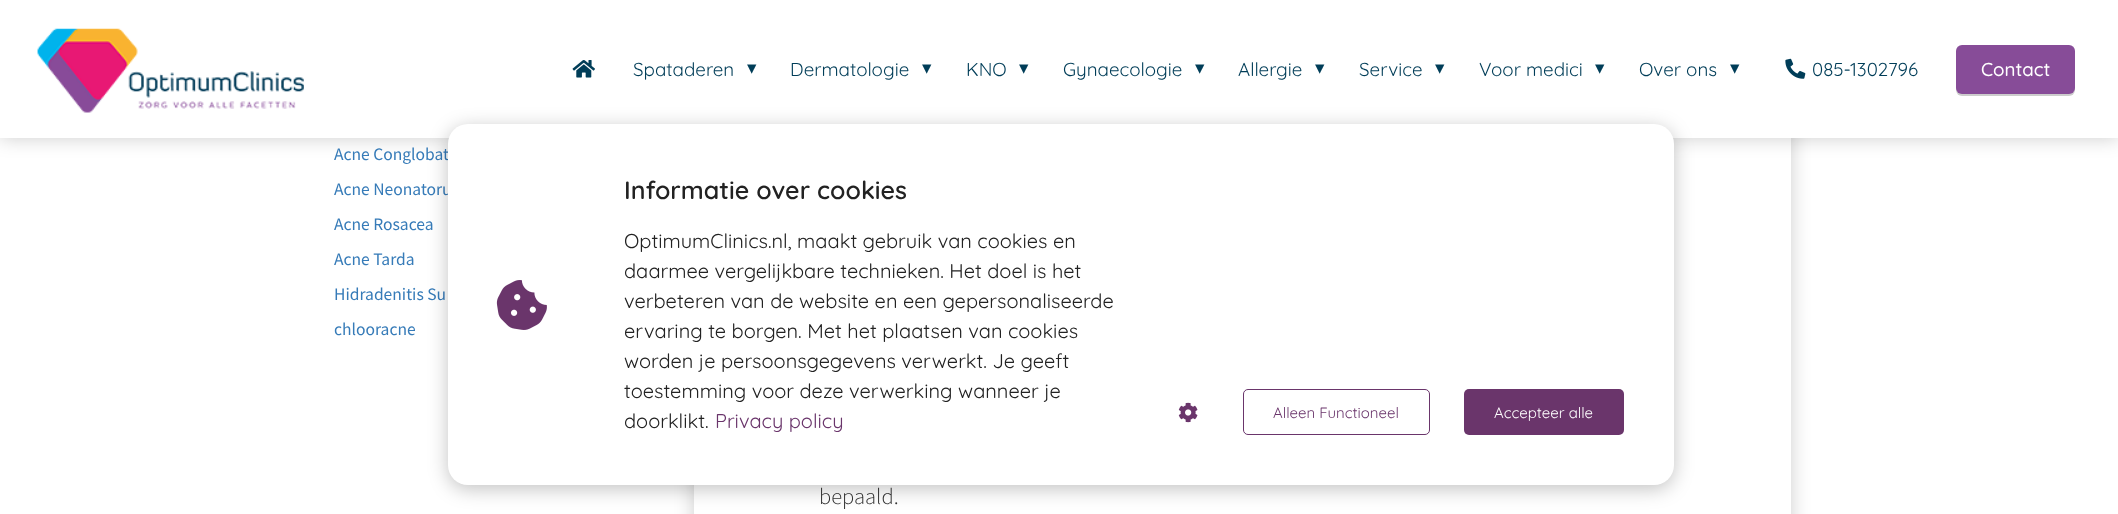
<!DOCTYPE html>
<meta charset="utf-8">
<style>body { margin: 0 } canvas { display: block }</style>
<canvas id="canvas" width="2118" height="514"></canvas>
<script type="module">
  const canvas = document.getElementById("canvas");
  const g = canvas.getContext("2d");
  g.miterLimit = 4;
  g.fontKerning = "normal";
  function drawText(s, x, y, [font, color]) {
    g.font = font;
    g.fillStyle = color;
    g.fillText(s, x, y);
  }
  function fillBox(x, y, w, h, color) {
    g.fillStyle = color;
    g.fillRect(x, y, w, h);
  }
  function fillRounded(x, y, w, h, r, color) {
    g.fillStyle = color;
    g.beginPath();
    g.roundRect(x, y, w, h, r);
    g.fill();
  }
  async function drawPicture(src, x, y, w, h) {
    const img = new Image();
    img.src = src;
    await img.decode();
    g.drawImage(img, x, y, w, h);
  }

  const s1 = ["18.75px Quicksand", "#003D58"];
  const s2 = ["18.75px DejaVu Sans", "#003D58"];
  const s3 = ["500 18.75px Quicksand", "#FFFFFF"];
  const s4 = ["17.5px Source Sans Pro", "#367BB8"];
  const s5 = ["300 22.5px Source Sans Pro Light", "#333333"];
  const s6 = ["600 25px Quicksand", "#222222"];
  const s7 = ["20px Quicksand", "#222222"];
  const s8 = ["20px Quicksand", "#6A356B"];
  const s9 = ["15px Quicksand", "#6A356B"];
  const s10 = ["15px Quicksand", "#FFFFFF"];

  fillBox(0, 0, 2118, 514, "#FFFFFF");
  g.fillStyle = "rgba(0, 0, 0, 0.2)";
  g.filter = "blur(9.5px)";
  g.beginPath();
  g.rect(0, 0, 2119, 138);
  g.fill();
  g.filter = "none";
  g.save();
  g.beginPath();
  g.moveTo(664, 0);
  g.lineTo(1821, 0);
  g.lineTo(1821, 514);
  g.lineTo(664, 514);
  g.closePath();
  g.moveTo(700, -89);
  g.lineTo(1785, -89);
  g.bezierCurveTo(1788.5, -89, 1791, -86.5, 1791, -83);
  g.lineTo(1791, 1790);
  g.bezierCurveTo(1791, 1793.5, 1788.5, 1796, 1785, 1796);
  g.lineTo(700, 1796);
  g.bezierCurveTo(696.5, 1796, 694, 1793.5, 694, 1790);
  g.lineTo(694, -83);
  g.bezierCurveTo(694, -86.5, 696.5, -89, 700, -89);
  g.closePath();
  g.clip("evenodd");
  g.filter = "blur(9.5px)";
  g.beginPath();
  g.roundRect(694, -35, 1097, 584, 6);
  g.fill();
  g.filter = "none";
  g.restore();
  fillBox(0, 0, 2118, 138, "#FFFFFF");
  await drawPicture("pic1.png", 37, 28, 267, 85);
  await drawPicture("pic2.png", 572, 60, 23, 18);
  drawText("Spataderen", 633, 76, s1);
  drawText("▾", 747, 74, s2);
  drawText("Dermatologie", 790, 76, s1);
  drawText("▾", 922, 74, s2);
  drawText("KNO", 966, 76, s1);
  drawText("▾", 1019, 74, s2);
  drawText("Gynaecologie", 1063, 76, s1);
  drawText("▾", 1195, 74, s2);
  drawText("Allergie", 1238, 76, s1);
  drawText("▾", 1315, 74, s2);
  drawText("Service", 1359, 76, s1);
  drawText("▾", 1435, 74, s2);
  drawText("Voor medici", 1479, 76, s1);
  drawText("▾", 1595, 74, s2);
  drawText("Over ons", 1639, 76, s1);
  drawText("▾", 1730, 74, s2);
  await drawPicture("pic3.png", 1785, 58, 21, 21);
  drawText("085-1302796", 1812, 76, s1);
  g.fillStyle = "rgba(0, 0, 0, 0.2)";
  g.filter = "blur(0.5px)";
  g.beginPath();
  g.roundRect(1956, 48, 119, 48, 6);
  g.fill();
  g.filter = "none";
  fillRounded(1956, 45, 119, 49, 6, "#874C98");
  drawText("Contact", 1981, 76, s3);
  drawText("Acne Conglobat", 334, 160, s4);
  drawText("Acne Neonatoru", 334, 195, s4);
  drawText("Acne Rosacea", 334, 230, s4);
  drawText("Acne Tarda", 334, 265, s4);
  drawText("Hidradenitis Su", 334, 300, s4);
  drawText("chlooracne", 334, 335, s4);
  drawText("bepaald.", 819, 504, s5);
  g.fillStyle = "rgba(0, 0, 0, 0.24)";
  g.filter = "blur(9.5px)";
  g.beginPath();
  g.roundRect(448, 128, 1226, 361, 20);
  g.fill();
  g.filter = "none";
  fillRounded(448, 124, 1226, 361, 20, "#FFFFFF");
  await drawPicture("pic4.png", 496, 280, 51, 50);
  drawText("Informatie over cookies", 624, 199, s6);
  drawText("OptimumClinics.nl, maakt gebruik van cookies en", 624, 248, s7);
  drawText("daarmee vergelijkbare technieken. Het doel is het", 624, 278, s7);
  drawText("verbeteren van de website en een gepersonaliseerde", 624, 308, s7);
  drawText("ervaring te borgen. Met het plaatsen van cookies", 624, 338, s7);
  drawText("worden je persoonsgegevens verwerkt. Je geeft", 624, 368, s7);
  drawText("toestemming voor deze verwerking wanneer je", 624, 398, s7);
  drawText("doorklikt.", 624, 428, s7);
  drawText("Privacy policy", 715, 428, s8);
  await drawPicture("pic5.png", 1178, 402, 20, 21);
  g.beginPath();
  g.roundRect(1243.5, 389.5, 186, 45, 4.5);
  g.strokeStyle = "#6A356B";
  g.stroke();
  drawText("Alleen Functioneel", 1273, 418, s9);
  fillRounded(1464, 389, 160, 46, 5, "#6A356B");
  drawText("Accepteer alle", 1494, 418, s10);
</script>
